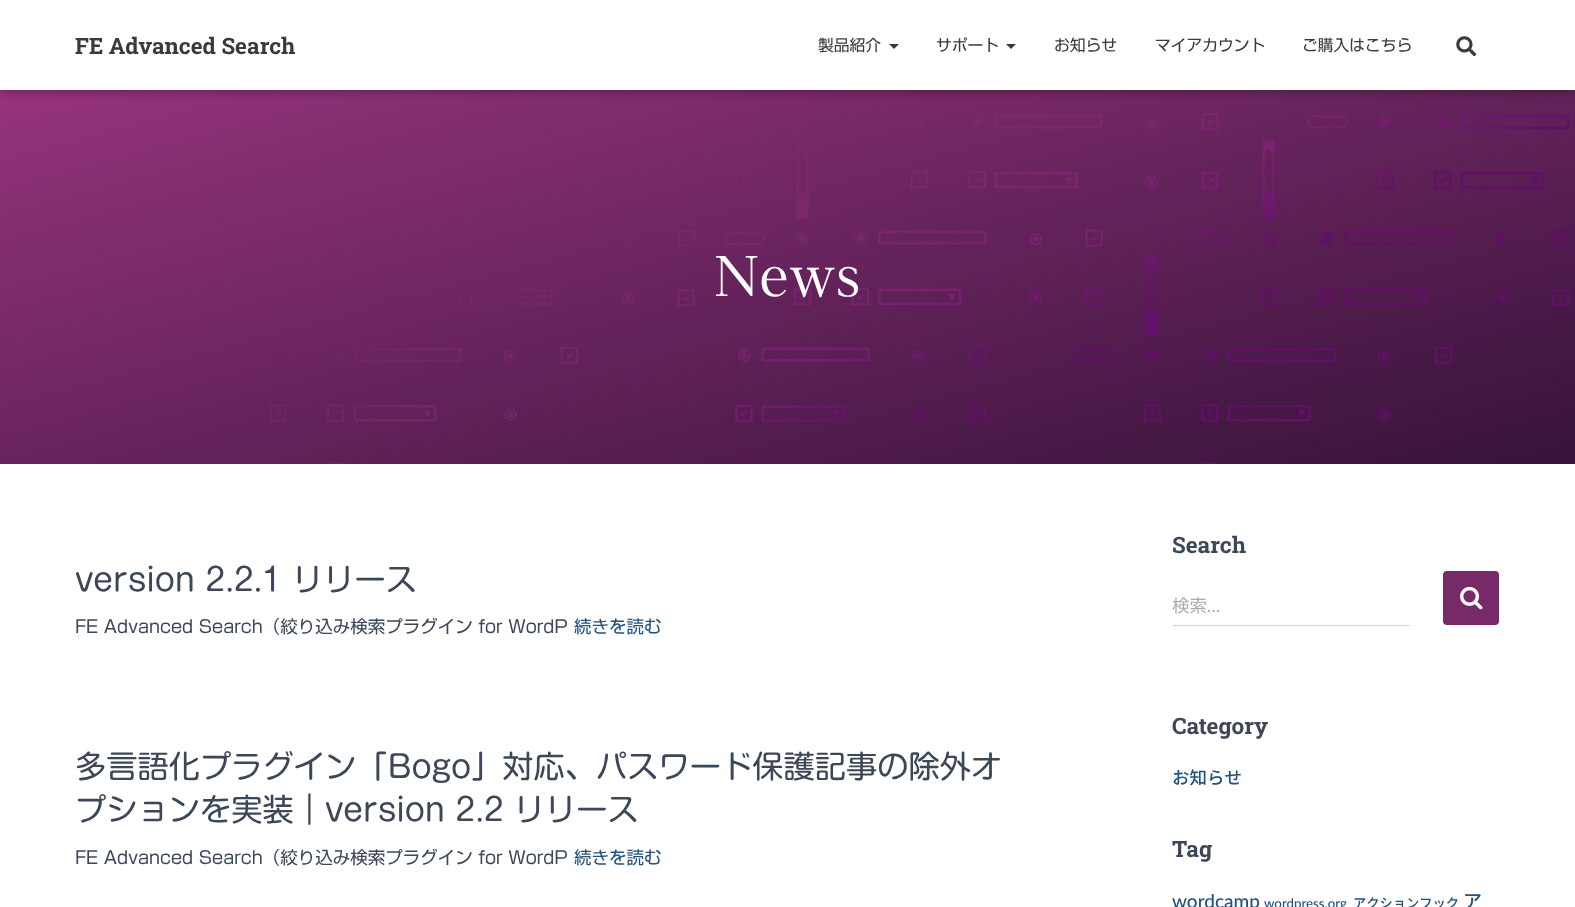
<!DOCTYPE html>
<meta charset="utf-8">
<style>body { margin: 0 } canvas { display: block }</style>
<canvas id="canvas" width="1575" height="907"></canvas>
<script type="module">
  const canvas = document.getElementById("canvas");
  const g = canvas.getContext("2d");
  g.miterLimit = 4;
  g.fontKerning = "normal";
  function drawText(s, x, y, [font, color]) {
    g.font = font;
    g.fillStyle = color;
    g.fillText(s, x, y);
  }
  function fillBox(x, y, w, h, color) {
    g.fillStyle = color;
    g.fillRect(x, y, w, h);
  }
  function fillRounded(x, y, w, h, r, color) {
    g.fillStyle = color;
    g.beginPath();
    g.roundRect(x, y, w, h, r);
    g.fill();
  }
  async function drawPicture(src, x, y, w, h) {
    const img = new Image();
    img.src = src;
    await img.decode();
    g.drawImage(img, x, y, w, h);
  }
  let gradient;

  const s1 = ["bold 22.5px Roboto Slab", "#3A3A3A"];
  const s2 = ["15.75px 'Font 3'", "#3A3A3A"];
  const s3 = ["52.5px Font", "#FFFFFF"];
  const s4 = ["31.25px 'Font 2'", "#3C4858"];
  const s5 = ["17.5px 'Font 3'", "#3C4858"];
  const s6 = ["17.5px 'Font 3'", "#23527C"];
  const s7 = ["bold 22.5px Roboto Slab", "#3C4858"];
  const s8 = ["17.5px Noto Sans JP", "#AAAAAA"];
  const s9 = ["17.5px Lato", "#AAAAAA"];
  const s10 = ["500 17.5px Noto Sans JP", "#23527C"];
  const s11 = ["500 19px Lato", "#23527C"];
  const s12 = ["500 13.25px Lato", "#23527C"];
  const s13 = ["500 13.25px Noto Sans JP", "#23527C"];
  const s14 = ["500 19px Noto Sans JP", "#23527C"];

  fillBox(0, 0, 1575, 907, "#FFFFFF");
  gradient = g.createLinearGradient(898, 645, 677, -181);
  gradient.addColorStop(0, "#361339");
  gradient.addColorStop(1, "#A03785");
  g.fillStyle = gradient;
  g.fillRect(0, 90, 1575, 374);
  g.fillStyle = "rgba(0, 0, 0, 0.1)";
  g.filter = "blur(3px)";
  g.beginPath();
  g.rect(3, 8, 1570, 85);
  g.fill();
  g.filter = "none";
  g.fillStyle = "rgba(0, 0, 0, 0.12)";
  g.filter = "blur(6px)";
  g.beginPath();
  g.rect(0, 1, 1575, 90);
  g.fill();
  g.filter = "none";
  g.fillStyle = "rgba(0, 0, 0, 0.42)";
  g.filter = "blur(6px)";
  g.beginPath();
  g.rect(8, 9, 1560, 75);
  g.fill();
  g.filter = "none";
  fillBox(0, 0, 1575, 90, "#FFFFFF");
  drawText("FE Advanced Search", 75, 54, s1);
  drawText("製品紹介", 818, 51, s2);
  g.beginPath();
  g.moveTo(889, 44);
  g.lineTo(899, 44);
  g.lineTo(894, 49);
  g.closePath();
  g.fill();
  drawText("サポート", 936, 51, s2);
  g.beginPath();
  g.moveTo(1006, 44);
  g.lineTo(1016, 44);
  g.lineTo(1011, 49);
  g.closePath();
  g.fill();
  drawText("お知らせ", 1054, 51, s2);
  drawText("マイアカウント", 1155, 51, s2);
  drawText("ご購入はこちら", 1302, 51, s2);
  await drawPicture("pic1.png", 1456, 36, 20, 20);
  await drawPicture("pic2.png", 269, 112, 1301, 352);
  drawText("News", 714, 296, s3);
  drawText("version 2.2.1 リリース", 75, 591, s4);
  drawText("FE Advanced Search（絞り込み検索プラグイン for WordP", 75, 633, s5);
  drawText("続きを読む", 574, 633, s6);
  drawText("多言語化プラグイン「Bogo」対応、パスワード保護記事の除外オ", 75, 778, s4);
  drawText("プションを実装｜version 2.2 リリース", 75, 821, s4);
  drawText("FE Advanced Search（絞り込み検索プラグイン for WordP", 75, 864, s5);
  drawText("続きを読む", 574, 864, s6);
  drawText("Search", 1172, 553, s7);
  drawText("検索", 1172, 612, s8);
  drawText("…", 1207, 612, s9);
  fillBox(1173, 625, 237, 1, "#D2D2D2");
  fillRounded(1443, 571, 56, 54, 4, "#772968");
  await drawPicture("pic3.png", 1460, 586, 23, 24);
  drawText("Category", 1172, 734, s7);
  drawText("お知らせ", 1172, 784, s10);
  drawText("Tag", 1172, 857, s7);
  drawText("wordcamp", 1172, 908, s11);
  drawText("wordpress.org", 1264, 908, s12);
  drawText("アクションフック", 1353, 908, s13);
  drawText("ア", 1463, 908, s14);
</script>
